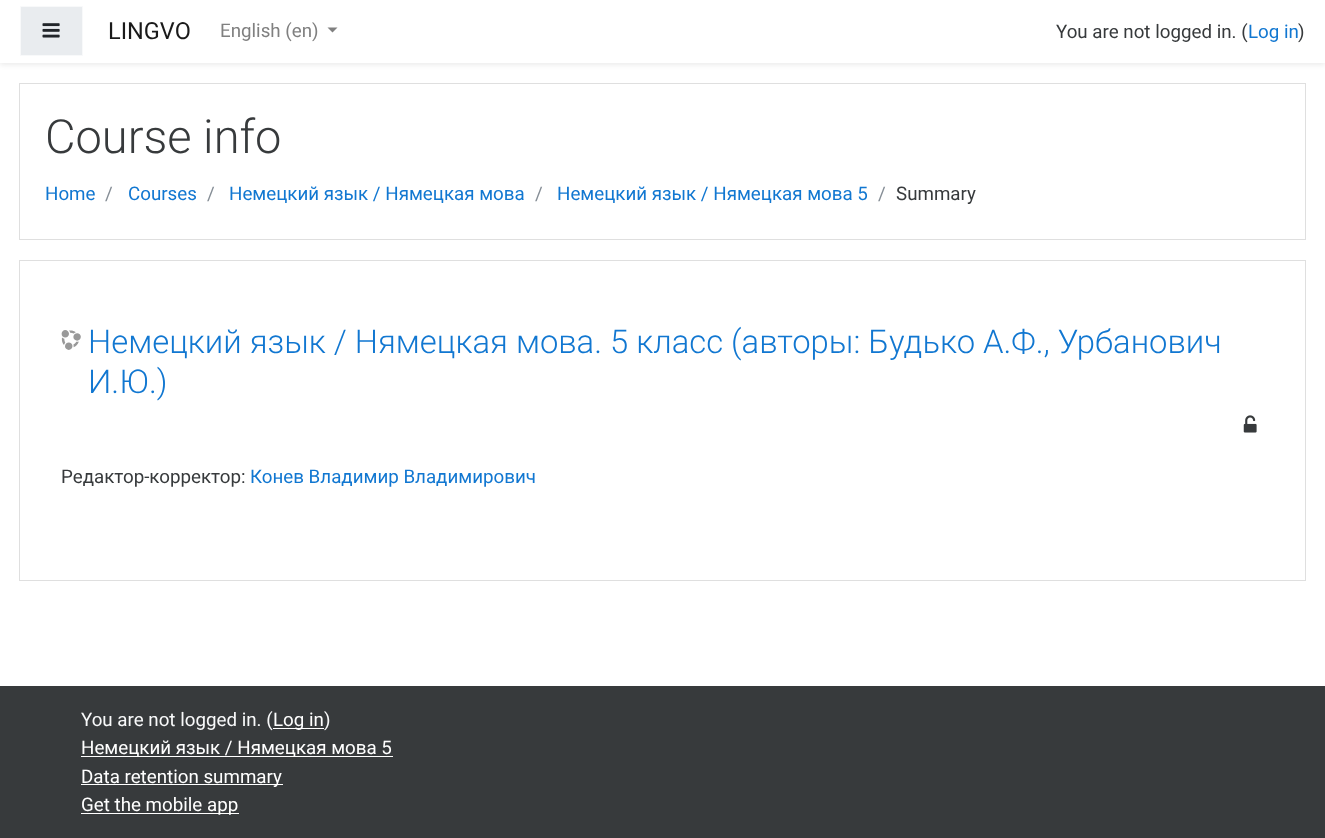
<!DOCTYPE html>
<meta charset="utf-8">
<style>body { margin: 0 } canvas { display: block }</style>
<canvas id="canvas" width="1325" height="838"></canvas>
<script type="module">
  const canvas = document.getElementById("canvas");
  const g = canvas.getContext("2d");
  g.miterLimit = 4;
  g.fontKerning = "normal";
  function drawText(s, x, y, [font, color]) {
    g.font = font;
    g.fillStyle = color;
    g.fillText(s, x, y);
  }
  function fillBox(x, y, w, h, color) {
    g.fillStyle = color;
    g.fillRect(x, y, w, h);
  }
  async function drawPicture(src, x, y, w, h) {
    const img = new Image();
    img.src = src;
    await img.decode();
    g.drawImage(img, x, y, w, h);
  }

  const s1 = ["23.5px Roboto", "#1A1A1A"];
  const s2 = ["18.75px Roboto", "#808080"];
  const s3 = ["18.75px Roboto", "#373A3C"];
  const s4 = ["18.75px Roboto", "#1177D1"];
  const s5 = ["300 47px Roboto", "#373A3C"];
  const s6 = ["18.75px Roboto", "#868E96"];
  const s7 = ["300 32.8px Roboto", "#1177D1"];
  const s8 = ["18.75px Roboto", "#F8F9FA"];
  const s9 = ["18.75px Roboto", "#FFFFFF"];

  fillBox(0, 0, 1325, 838, "#FFFFFF");
  g.fillStyle = "rgba(0, 0, 0, 0.08)";
  g.filter = "blur(2.5px)";
  g.beginPath();
  g.rect(0, 3, 1325, 62);
  g.fill();
  g.filter = "none";
  fillBox(0, 0, 1325, 63, "#FFFFFF");
  g.fillStyle = "#E9ECEF";
  g.beginPath();
  g.rect(20.5, 6.5, 62, 49);
  g.fill();
  g.strokeStyle = "#F8F9FA";
  g.stroke();
  await drawPicture("pic1.png", 42, 23, 18, 15);
  drawText("LINGVO", 108, 39, s1);
  drawText("English (en)", 220, 37, s2);
  g.beginPath();
  g.moveTo(327.5, 27.5);
  g.lineTo(337.5, 27.5);
  g.lineTo(332.5, 32.5);
  g.closePath();
  g.fill();
  drawText("You are not logged in. (", 1056, 38, s3);
  drawText("Log in", 1248, 38, s4);
  drawText(")", 1298, 38, s3);
  g.strokeStyle = "#DFDFDF";
  g.strokeRect(19.5, 83.5, 1286, 156);
  drawText("Course info", 45, 153, s5);
  drawText("Home", 45, 200, s4);
  drawText("/", 105, 200, s6);
  drawText("Courses", 128, 200, s4);
  drawText("/", 207, 200, s6);
  drawText("Немецкий язык / Нямецкая мова", 229, 200, s4);
  drawText("/", 535, 200, s6);
  drawText("Немецкий язык / Нямецкая мова 5", 557, 200, s4);
  drawText("/", 878, 200, s6);
  drawText("Summary", 896, 200, s3);
  g.strokeRect(19.5, 260.5, 1286, 320);
  await drawPicture("pic2.png", 61, 330, 20, 20);
  drawText("Немецкий язык / Нямецкая мова. 5 класс (авторы: Будько А.Ф., Урбанович", 88, 353, s7);
  drawText("И.Ю.)", 88, 393, s7);
  await drawPicture("pic3.png", 1243, 415, 14, 18);
  drawText("Редактор-корректор:", 61, 483, s3);
  drawText("Конев Владимир Владимирович", 250, 483, s4);
  fillBox(0, 686, 1325, 152, "#373A3C");
  drawText("You are not logged in. (", 81, 726, s8);
  fillBox(273, 728, 51, 1, "#FFFFFF");
  drawText("Log in", 273, 726, s9);
  drawText(")", 324, 726, s8);
  fillBox(81, 756, 312, 1, "#FFFFFF");
  drawText("Немецкий язык / Нямецкая мова 5", 81, 754, s9);
  fillBox(81, 784, 202, 1, "#FFFFFF");
  drawText("Data retention summary", 81, 783, s9);
  fillBox(81, 813, 158, 1, "#FFFFFF");
  drawText("Get the mobile app", 81, 811, s9);
</script>
